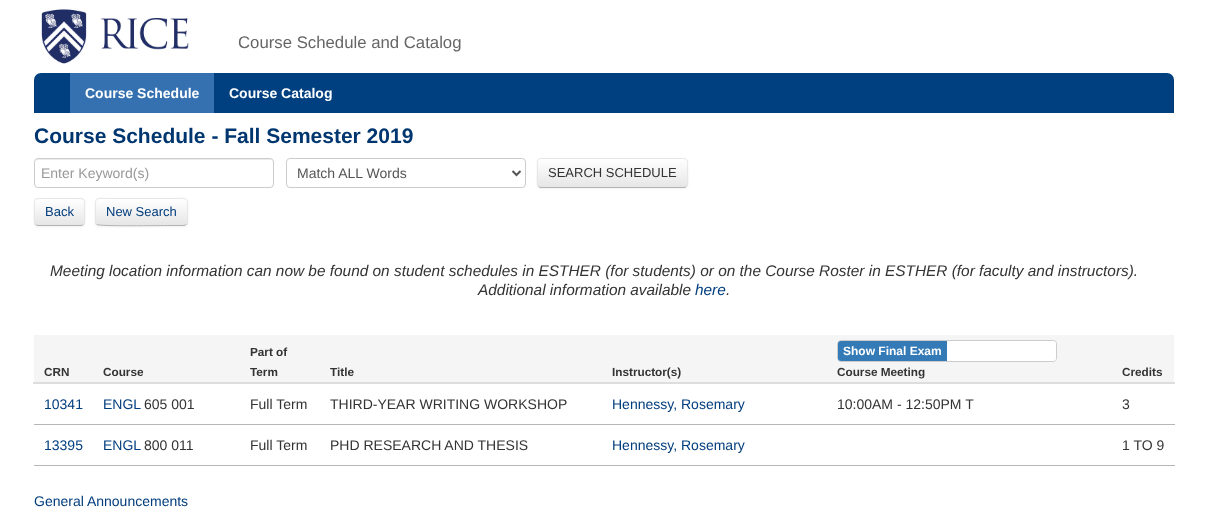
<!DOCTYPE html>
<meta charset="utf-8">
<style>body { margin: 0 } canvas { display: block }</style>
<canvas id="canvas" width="1208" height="507"></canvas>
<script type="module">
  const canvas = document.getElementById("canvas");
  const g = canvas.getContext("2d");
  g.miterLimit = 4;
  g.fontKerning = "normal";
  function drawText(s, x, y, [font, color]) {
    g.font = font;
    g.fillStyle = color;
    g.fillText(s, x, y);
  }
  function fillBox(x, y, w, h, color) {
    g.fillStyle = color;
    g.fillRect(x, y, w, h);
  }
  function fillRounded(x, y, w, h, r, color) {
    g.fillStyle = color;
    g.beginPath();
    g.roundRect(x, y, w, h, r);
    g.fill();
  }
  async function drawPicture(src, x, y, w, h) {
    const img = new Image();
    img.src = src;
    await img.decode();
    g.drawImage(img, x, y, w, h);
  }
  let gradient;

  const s1 = ["16.75px Liberation Sans", "#666666"];
  const s2 = ["bold 14px Liberation Sans", "#FFFFFF"];
  const s3 = ["bold 21px Liberation Sans", "#00366F"];
  const s4 = ["14px Liberation Sans", "#999999"];
  const s5 = ["14px Liberation Sans", "#555555"];
  const s6 = ["13px Liberation Sans", "#333333"];
  const s7 = ["13px Liberation Sans", "#003D7D"];
  const s8 = ["italic 15.4px Liberation Sans", "#333333"];
  const s9 = ["italic 15.4px Liberation Sans", "#003D7D"];
  const s10 = ["bold 11.75px Liberation Sans", "#333333"];
  const s11 = ["bold 12px Liberation Sans", "#FFFFFF"];
  const s12 = ["14px Liberation Sans", "#003D7D"];
  const s13 = ["14px Liberation Sans", "#333333"];

  fillBox(0, 0, 1208, 507, "#FFFFFF");
  await drawPicture("pic1.png", 41, 9, 148, 55);
  drawText("Course Schedule and Catalog", 238, 48, s1);
  g.fillStyle = "#004080";
  g.beginPath();
  g.roundRect(34, 73, 1140, 40, [7, 7, 0, 0]);
  g.fill();
  fillBox(1173, 77, 1, 36, "rgba(0, 0, 0, 0.1)");
  fillBox(34, 77, 1, 36, "rgba(0, 0, 0, 0.1)");
  fillBox(70, 73, 144, 40, "#3571B1");
  drawText("Course Schedule", 85, 98, s2);
  drawText("Course Catalog", 229, 98, s2);
  drawText("Course Schedule - Fall Semester 2019", 34, 143, s3);
  g.fillStyle = "#ECECEC";
  g.beginPath();
  g.moveTo(38, 160);
  g.lineTo(271, 160);
  g.lineTo(273, 161);
  g.lineTo(273, 163);
  g.bezierCurveTo(273, 161, 272, 159, 270, 159);
  g.lineTo(38, 159);
  g.bezierCurveTo(36, 159, 35, 161, 35, 163);
  g.bezierCurveTo(35, 161, 36, 160, 38, 160);
  g.closePath();
  g.fill();
  g.beginPath();
  g.roundRect(34.5, 158.5, 239, 29, 3.5);
  g.strokeStyle = "#CCCCCC";
  g.stroke();
  drawText("Enter Keyword(s)", 41, 178, s4);
  g.beginPath();
  g.roundRect(286.5, 158.5, 239, 29, 3.5);
  g.stroke();
  g.beginPath();
  g.moveTo(512.5, 171);
  g.lineTo(516.5, 175);
  g.lineTo(520.5, 171);
  g.strokeStyle = "#555555";
  g.lineWidth = 2;
  g.stroke();
  drawText("Match ALL Words", 297, 178, s5);
  g.fillStyle = "rgba(0, 0, 0, 0.05)";
  g.filter = "blur(1px)";
  g.beginPath();
  g.roundRect(537, 159, 151, 30, 4);
  g.fill();
  g.filter = "none";
  g.save();
  g.beginPath();
  g.roundRect(537, 158, 151, 30, 4);
  g.clip();
  gradient = g.createLinearGradient(613, 159, 613, 187);
  gradient.addColorStop(0, "#FFFFFF");
  gradient.addColorStop(1, "#E6E6E6");
  g.fillStyle = gradient;
  g.fillRect(537, 159, 151, 28);
  g.restore();
  g.beginPath();
  g.moveTo(686.5, 186.5);
  g.bezierCurveTo(686, 187, 685, 187.5, 684, 187.5);
  g.lineTo(541, 187.5);
  g.bezierCurveTo(540, 187.5, 539, 187, 538.5, 186.5);
  g.strokeStyle = "#B3B3B3";
  g.lineWidth = 1;
  g.stroke();
  g.beginPath();
  g.moveTo(538.5, 186.5);
  g.bezierCurveTo(536.5, 184.5, 537.5, 176, 537.5, 173);
  g.lineTo(537.5, 165.5);
  g.bezierCurveTo(537.5, 163, 537, 158.5, 541, 158.5);
  g.lineTo(684, 158.5);
  g.bezierCurveTo(688, 158.5, 687.5, 163, 687.5, 165.5);
  g.lineTo(687.5, 173);
  g.bezierCurveTo(687.5, 176, 688.5, 184.5, 686.5, 186.5);
  g.strokeStyle = "#E6E6E6";
  g.stroke();
  drawText("SEARCH SCHEDULE", 548, 177, s6);
  g.fillStyle = "rgba(0, 0, 0, 0.05)";
  g.filter = "blur(1px)";
  g.beginPath();
  g.roundRect(34, 199, 51, 28, 4);
  g.fill();
  g.filter = "none";
  fillRounded(34, 198, 51, 28, 4, "#F5F5F5");
  g.save();
  g.beginPath();
  g.roundRect(34, 198, 51, 28, 4);
  g.clip();
  gradient = g.createLinearGradient(60, 199, 60, 225);
  gradient.addColorStop(0, "#FFFFFF");
  gradient.addColorStop(1, "#E6E6E6");
  g.fillStyle = gradient;
  g.fillRect(34, 199, 51, 26);
  g.restore();
  g.fillStyle = "#FFFFFF";
  g.beginPath();
  g.moveTo(38, 200);
  g.lineTo(81, 200);
  g.bezierCurveTo(83, 200, 84, 201, 84, 203);
  g.bezierCurveTo(84, 197, 78, 199, 74, 199);
  g.lineTo(45, 199);
  g.bezierCurveTo(41, 199, 35, 197, 35, 203);
  g.bezierCurveTo(35, 201, 36, 200, 38, 200);
  g.closePath();
  g.fill();
  g.beginPath();
  g.moveTo(83.5, 224.5);
  g.bezierCurveTo(83, 225, 82, 225.5, 81, 225.5);
  g.lineTo(38, 225.5);
  g.bezierCurveTo(37, 225.5, 36, 225, 35.5, 224.5);
  g.strokeStyle = "#B3B3B3";
  g.stroke();
  g.beginPath();
  g.moveTo(35.5, 224.5);
  g.bezierCurveTo(33.5, 222, 34.5, 214.5, 34.5, 212);
  g.bezierCurveTo(34.5, 198.5, 32, 198.5, 45, 198.5);
  g.lineTo(74, 198.5);
  g.bezierCurveTo(87, 198.5, 84.5, 198.5, 84.5, 212);
  g.bezierCurveTo(84.5, 214.5, 85.5, 222, 83.5, 224.5);
  g.strokeStyle = "#E6E6E6";
  g.stroke();
  drawText("Back", 45, 216, s7);
  g.fillStyle = "rgba(0, 0, 0, 0.05)";
  g.filter = "blur(1px)";
  g.beginPath();
  g.roundRect(95, 199, 93, 28, 4);
  g.fill();
  g.filter = "none";
  fillRounded(95, 198, 93, 28, 4, "#F5F5F5");
  g.save();
  g.beginPath();
  g.roundRect(95, 198, 93, 28, 4);
  g.clip();
  gradient = g.createLinearGradient(142, 199, 142, 225);
  gradient.addColorStop(0, "#FFFFFF");
  gradient.addColorStop(1, "#E6E6E6");
  g.fillStyle = gradient;
  g.fillRect(95, 199, 93, 26);
  g.restore();
  g.beginPath();
  g.moveTo(186.5, 224.5);
  g.lineTo(184, 225.5);
  g.lineTo(170, 225.5);
  g.bezierCurveTo(161.5, 225.5, 99, 226.5, 97, 224.5);
  g.lineTo(96.5, 224.5);
  g.strokeStyle = "#B3B3B3";
  g.stroke();
  g.beginPath();
  g.moveTo(96.5, 224.5);
  g.bezierCurveTo(94.5, 222.5, 95.5, 218, 95.5, 215.5);
  g.bezierCurveTo(95.5, 195.5, 92.5, 198.5, 113, 198.5);
  g.lineTo(170, 198.5);
  g.bezierCurveTo(190.5, 198.5, 187.5, 195.5, 187.5, 215.5);
  g.bezierCurveTo(187.5, 218, 188.5, 222.5, 186.5, 224.5);
  g.strokeStyle = "#E6E6E6";
  g.stroke();
  drawText("New Search", 106, 216, s7);
  drawText("Meeting location information can now be found on student schedules in ESTHER (for students) or on the Course Roster in ESTHER (for faculty and instructors).", 50, 276, s8);
  drawText("Additional information available", 478, 295, s8);
  drawText("here", 695, 295, s9);
  drawText(".", 726, 295, s8);
  fillBox(34, 335, 1140, 47, "#F5F5F5");
  drawText("CRN", 44, 376, s10);
  drawText("Course", 103, 376, s10);
  drawText("Part of", 250, 356, s10);
  drawText("Term", 250, 376, s10);
  drawText("Title", 330, 376, s10);
  drawText("Instructor(s)", 612, 376, s10);
  g.beginPath();
  g.roundRect(837.5, 340.5, 219, 21, 3.5);
  g.strokeStyle = "#CCCCCC";
  g.stroke();
  g.fillStyle = "#337AB7";
  g.beginPath();
  g.roundRect(838, 341, 109, 20, [3, 0, 0, 3]);
  g.fill();
  drawText("Show Final Exam", 843, 355, s11);
  g.beginPath();
  g.roundRect(947, 341, 109, 20, [0, 3, 3, 0]);
  g.fill();
  drawText("Course Meeting", 837, 376, s10);
  fillBox(33, 382, 1142, 2, "#DDDDDD");
  drawText("Credits", 1122, 376, s10);
  fillBox(34, 424, 1141, 1, "#B6B6B6");
  drawText("10341", 44, 409, s12);
  drawText("ENGL", 103, 409, s12);
  drawText("605 001", 144, 409, s13);
  drawText("Full Term", 250, 409, s13);
  drawText("THIRD-YEAR WRITING WORKSHOP", 330, 409, s13);
  drawText("Hennessy, Rosemary", 612, 409, s12);
  drawText("10:00AM - 12:50PM T", 837, 409, s13);
  drawText("3", 1122, 409, s13);
  fillBox(34, 465, 1141, 1, "#B6B6B6");
  drawText("13395", 44, 450, s12);
  drawText("ENGL", 103, 450, s12);
  drawText("800 011", 144, 450, s13);
  drawText("Full Term", 250, 450, s13);
  drawText("PHD RESEARCH AND THESIS", 330, 450, s13);
  drawText("Hennessy, Rosemary", 612, 450, s12);
  drawText("1 TO 9", 1122, 450, s13);
  drawText("General Announcements", 34, 506, s12);
</script>
